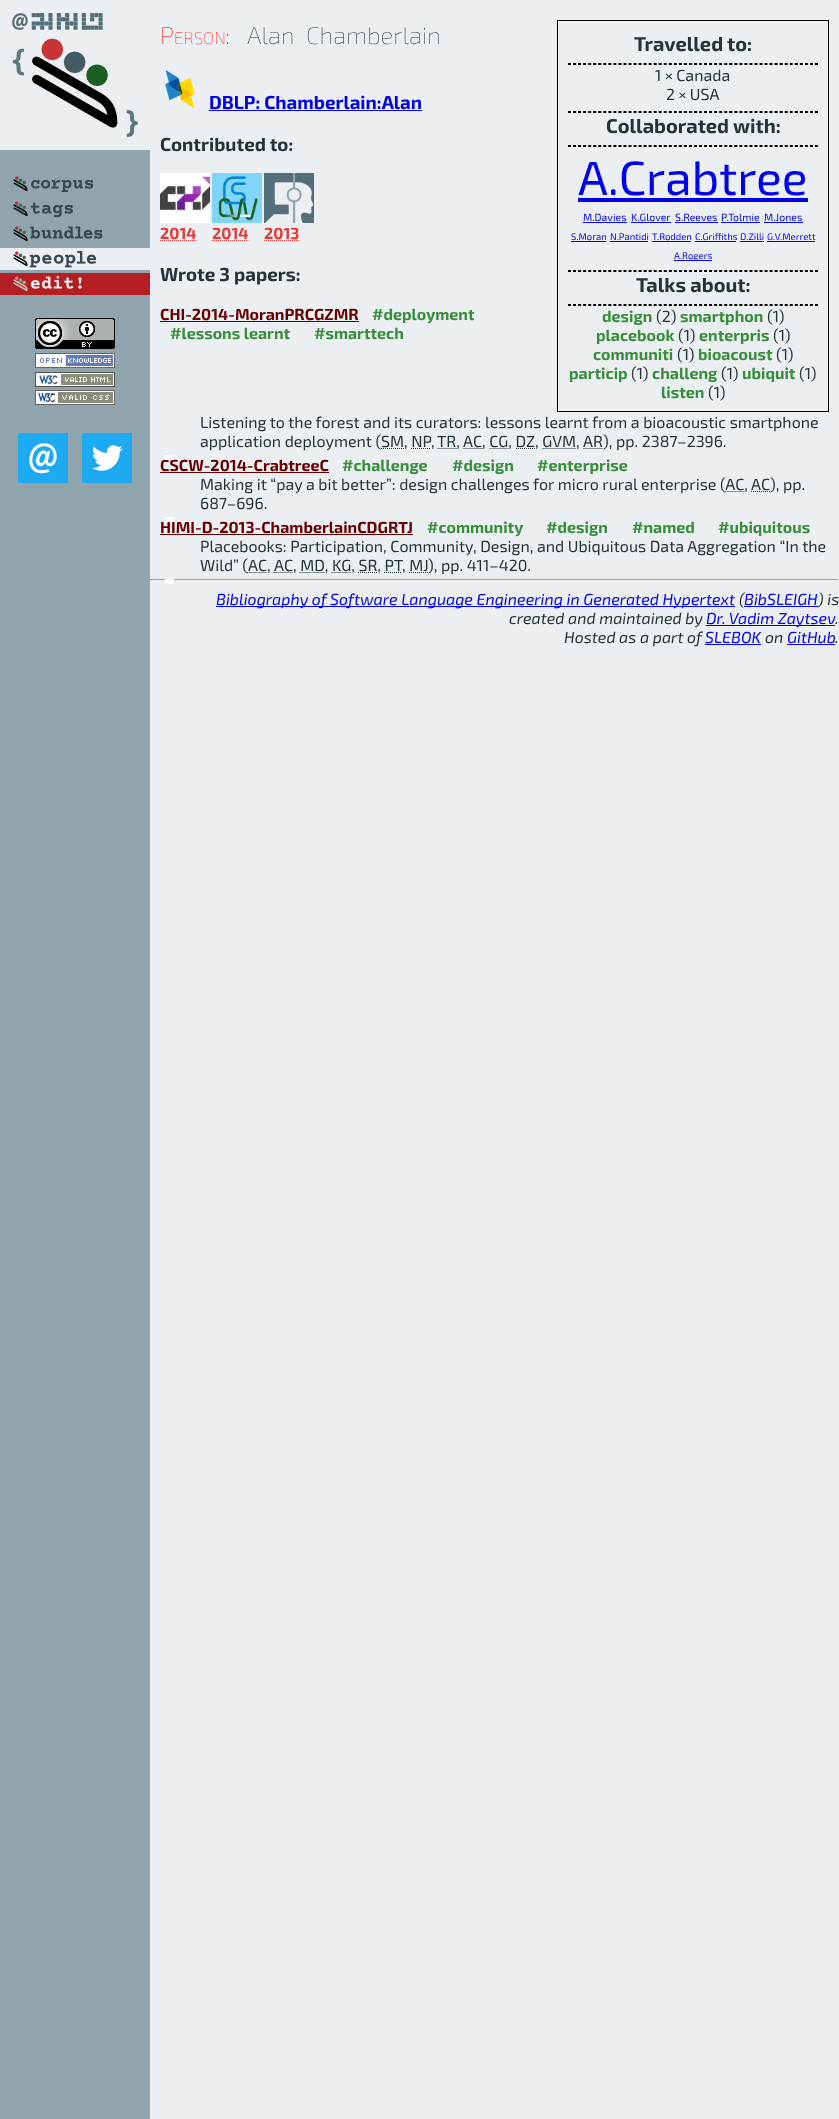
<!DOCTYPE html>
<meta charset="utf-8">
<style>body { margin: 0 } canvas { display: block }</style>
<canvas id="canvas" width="839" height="2119"></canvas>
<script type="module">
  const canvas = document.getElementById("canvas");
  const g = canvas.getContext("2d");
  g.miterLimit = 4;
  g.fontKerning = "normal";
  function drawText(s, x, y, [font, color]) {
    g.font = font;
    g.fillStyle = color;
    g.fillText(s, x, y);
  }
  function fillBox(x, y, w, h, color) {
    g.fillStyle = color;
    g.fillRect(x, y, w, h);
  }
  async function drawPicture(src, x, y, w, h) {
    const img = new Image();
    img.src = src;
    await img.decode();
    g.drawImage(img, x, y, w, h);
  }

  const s1 = ["100 24px 'Exo 2'", "#FF0000"];
  const s2 = ["100 17px 'Exo 2'", "#FF0000"];
  const s3 = ["100 24px 'Exo 2'", "#263238"];
  const s4 = ["bold 20px 'Exo 2'", "#263238"];
  const s5 = ["16px 'Exo 2'", "#263238"];
  const s6 = ["48px 'Exo 2'", "#0000EE"];
  const s7 = ["10.5px 'Exo 2'", "#0000EE"];
  const s8 = ["9.5px 'Exo 2'", "#0000EE"];
  const s9 = ["bold 16px 'Exo 2'", "#388E3C"];
  const s10 = ["bold 18.75px 'Exo 2'", "#0000EE"];
  const s11 = ["bold 18.75px 'Exo 2'", "#263238"];
  const s12 = ["bold 16px 'Exo 2'", "#E53935"];
  const s13 = ["bold 16px 'Exo 2'", "#660000"];
  const s14 = ["italic 16px 'Exo 2'", "#0000EE"];
  const s15 = ["italic 16px 'Exo 2'", "#263238"];

  fillBox(0, 0, 839, 2119, "#ECEFF1");
  fillBox(0, 150, 150, 1969, "#90A4AE");
  await drawPicture("pic1.png", 0, 0, 150, 150);
  await drawPicture("pic2.png", 13, 176, 81, 16);
  await drawPicture("pic3.png", 13, 201, 60, 17);
  await drawPicture("pic4.png", 13, 226, 90, 16);
  await drawPicture("pic5.png", 0, 248, 150, 22);
  await drawPicture("pic6.png", 0, 273, 150, 22);
  await drawPicture("pic7.png", 35, 318, 80, 31);
  await drawPicture("pic8.png", 35, 353, 80, 15);
  await drawPicture("pic9.png", 35, 372, 80, 15);
  await drawPicture("pic10.png", 35, 390, 80, 15);
  await drawPicture("pic11.png", 18, 433, 50, 50);
  await drawPicture("pic12.png", 82, 433, 50, 50);
  drawText("P", 160, 44, s1);
  drawText("ERSON", 174, 44, s2);
  drawText(":", 225, 44, s1);
  g.wordSpacing = "6px";
  drawText("Alan Chamberlain", 247, 44, s3);
  g.strokeStyle = "#000000";
  g.strokeRect(557.5, 20.5, 271, 391);
  g.wordSpacing = "0px";
  drawText("Travelled to:", 634, 51, s4);
  g.beginPath();
  g.moveTo(568, 63.5);
  g.lineTo(818, 63.5);
  g.setLineDash([3, 2.04]);
  g.stroke();
  fillBox(817, 63, 1, 2, "#000000");
  g.beginPath();
  g.moveTo(568, 64.5);
  g.lineTo(818, 64.5);
  g.stroke();
  drawText("1 × Canada", 655, 81, s5);
  drawText("2 × USA", 666, 100, s5);
  g.beginPath();
  g.moveTo(568, 111.5);
  g.lineTo(818, 111.5);
  g.stroke();
  fillBox(817, 111, 1, 2, "#000000");
  g.beginPath();
  g.moveTo(568, 112.5);
  g.lineTo(818, 112.5);
  g.stroke();
  drawText("Collaborated with:", 606, 133, s4);
  g.beginPath();
  g.moveTo(568, 145.5);
  g.lineTo(818, 145.5);
  g.stroke();
  fillBox(817, 145, 1, 2, "#000000");
  g.beginPath();
  g.moveTo(568, 146.5);
  g.lineTo(818, 146.5);
  g.stroke();
  drawText("A.Crabtree", 578, 195, s6);
  fillBox(578, 198, 230, 4, "#0000EE");
  drawText("M.Davies", 583, 221, s7);
  fillBox(583, 222, 44, 1, "#0000EE");
  drawText("K.Glover", 631, 221, s7);
  fillBox(631, 222, 40, 1, "#0000EE");
  drawText("S.Reeves", 675, 221, s7);
  fillBox(675, 222, 43, 1, "#0000EE");
  drawText("P.Tolmie", 721, 221, s7);
  fillBox(721, 222, 39, 1, "#0000EE");
  drawText("M.Jones", 764, 221, s7);
  fillBox(764, 222, 39, 1, "#0000EE");
  drawText("S.Moran", 571, 240, s8);
  fillBox(571, 241, 35, 1, "#0000EE");
  drawText("N.Pantidi", 610, 240, s8);
  fillBox(610, 241, 38, 1, "#0000EE");
  drawText("T.Rodden", 652, 240, s8);
  fillBox(652, 241, 39, 1, "#0000EE");
  drawText("C.Griffiths", 695, 240, s8);
  fillBox(695, 241, 41, 1, "#0000EE");
  drawText("D.Zilli", 740, 240, s8);
  fillBox(740, 241, 24, 1, "#0000EE");
  drawText("G.V.Merrett", 767, 240, s8);
  fillBox(767, 241, 48, 1, "#0000EE");
  fillBox(674, 260, 38, 1, "#0000EE");
  drawText("A.Rogers", 674, 259, s8);
  g.beginPath();
  g.moveTo(568, 270.5);
  g.lineTo(818, 270.5);
  g.stroke();
  fillBox(817, 270, 1, 2, "#000000");
  g.beginPath();
  g.moveTo(568, 271.5);
  g.lineTo(818, 271.5);
  g.stroke();
  drawText("Talks about:", 636, 292, s4);
  g.beginPath();
  g.moveTo(568, 304.5);
  g.lineTo(818, 304.5);
  g.stroke();
  fillBox(817, 304, 1, 2, "#000000");
  g.beginPath();
  g.moveTo(568, 305.5);
  g.lineTo(818, 305.5);
  g.stroke();
  drawText("design", 602, 322, s9);
  drawText("(2)", 656, 322, s5);
  drawText("smartphon", 680, 322, s9);
  drawText("(1)", 767, 322, s5);
  drawText("placebook", 596, 341, s9);
  drawText("(1)", 678, 341, s5);
  drawText("enterpris", 699, 341, s9);
  drawText("(1)", 773, 341, s5);
  drawText("communiti", 593, 360, s9);
  drawText("(1)", 677, 360, s5);
  drawText("bioacoust", 698, 360, s9);
  drawText("(1)", 776, 360, s5);
  drawText("particip", 569, 379, s9);
  drawText("(1)", 631, 379, s5);
  drawText("challeng", 652, 379, s9);
  drawText("(1)", 721, 379, s5);
  drawText("ubiquit", 742, 379, s9);
  drawText("(1)", 799, 379, s5);
  drawText("listen", 661, 398, s9);
  drawText("(1)", 708, 398, s5);
  await drawPicture("pic13.png", 165, 70, 30, 38);
  drawText("DBLP: Chamberlain:Alan", 209, 109, s10);
  fillBox(209, 110, 213, 1, "#0000EE");
  drawText("Contributed to:", 160, 151, s11);
  await drawPicture("pic14.png", 160, 173, 50, 50);
  drawText("2014", 160, 239, s12);
  g.beginPath();
  g.moveTo(160, 240.5);
  g.lineTo(196.5, 240.5);
  g.strokeStyle = "#E53935";
  g.setLineDash([1, 1]);
  g.stroke();
  await drawPicture("pic15.png", 212, 173, 50, 50);
  drawText("2014", 212, 239, s12);
  g.beginPath();
  g.moveTo(212, 240.5);
  g.lineTo(248.5, 240.5);
  g.stroke();
  await drawPicture("pic16.png", 264, 173, 50, 50);
  drawText("2013", 264, 239, s12);
  g.beginPath();
  g.moveTo(264, 240.5);
  g.lineTo(299.5, 240.5);
  g.stroke();
  drawText("Wrote 3 papers:", 160, 281, s11);
  drawText("CHI-2014-MoranPRCGZMR", 160, 320, s13);
  fillBox(160, 321, 199, 1, "#660000");
  drawText("#deployment", 372, 320, s9);
  drawText("#lessons learnt", 170, 339, s9);
  drawText("#smarttech", 314, 339, s9);
  drawText("Listening to the forest and its curators: lessons learnt from a bioacoustic smartphone", 200, 428, s5);
  drawText("application deployment (", 200, 447, s5);
  g.beginPath();
  g.moveTo(381, 448.5);
  g.lineTo(404, 448.5);
  g.strokeStyle = "#263238";
  g.stroke();
  drawText("SM, NP", 381, 447, s5);
  g.beginPath();
  g.moveTo(437.5, 448.5);
  g.lineTo(456.5, 448.5);
  g.stroke();
  drawText("TR,", 437, 447, s5);
  g.beginPath();
  g.moveTo(463.5, 448.5);
  g.lineTo(482.5, 448.5);
  g.stroke();
  drawText("AC, CG, DZ, GVM,", 463, 447, s5);
  drawText("AR", 583, 447, s5);
  drawText("), pp. 2387–2396.", 603, 447, s5);
  g.beginPath();
  g.moveTo(411, 448.5);
  g.lineTo(430.5, 448.5);
  g.stroke();
  drawText(",", 431, 447, s5);
  g.beginPath();
  g.moveTo(489.5, 448.5);
  g.lineTo(508.5, 448.5);
  g.moveTo(516, 448.5);
  g.lineTo(535.5, 448.5);
  g.stroke();
  g.beginPath();
  g.moveTo(542.5, 448.5);
  g.lineTo(576.5, 448.5);
  g.moveTo(583.5, 448.5);
  g.lineTo(602.5, 448.5);
  g.stroke();
  drawText("CSCW-2014-CrabtreeC", 160, 471, s13);
  fillBox(165, 455, 9, 5, "#FFFFFF");
  fillBox(160, 472, 169, 1, "#660000");
  drawText("#challenge", 342, 471, s9);
  drawText("#design", 452, 471, s9);
  drawText("#enterprise", 537, 471, s9);
  drawText("Making it “pay a bit better”: design challenges for micro rural enterprise (AC,", 200, 490, s5);
  g.beginPath();
  g.moveTo(725.5, 491.5);
  g.lineTo(744.5, 491.5);
  g.moveTo(751, 491.5);
  g.lineTo(770, 491.5);
  g.stroke();
  drawText("AC), pp.", 751, 490, s5);
  drawText("687–696.", 200, 509, s5);
  drawText("HIMI-D-2013-ChamberlainCDGRTJ", 160, 533, s13);
  fillBox(165, 517, 9, 5, "#FFFFFF");
  fillBox(160, 534, 253, 1, "#660000");
  drawText("#community", 427, 533, s9);
  drawText("#design", 546, 533, s9);
  drawText("#named", 632, 533, s9);
  drawText("#ubiquitous", 718, 533, s9);
  drawText("Placebooks: Participation, Community, Design, and Ubiquitous Data Aggregation “In the", 200, 552, s5);
  drawText("Wild” (", 200, 571, s5);
  g.beginPath();
  g.moveTo(247.5, 572.5);
  g.lineTo(266.5, 572.5);
  g.stroke();
  drawText("AC,", 248, 571, s5);
  g.beginPath();
  g.moveTo(273.5, 572.5);
  g.lineTo(292.5, 572.5);
  g.stroke();
  drawText("AC, MD, KG, SR, PT", 274, 571, s5);
  drawText(", MJ", 402, 571, s5);
  drawText("), pp. 411–420.", 428, 571, s5);
  g.beginPath();
  g.moveTo(299.5, 572.5);
  g.lineTo(324.5, 572.5);
  g.moveTo(331.5, 572.5);
  g.lineTo(350.5, 572.5);
  g.stroke();
  g.beginPath();
  g.moveTo(358, 572.5);
  g.lineTo(377, 572.5);
  g.moveTo(384, 572.5);
  g.lineTo(402, 572.5);
  g.stroke();
  g.beginPath();
  g.moveTo(409, 572.5);
  g.lineTo(428, 572.5);
  g.stroke();
  fillBox(150, 579, 689, 1, "#9F9F9F");
  fillBox(838, 579, 1, 2, "#EEEEEE");
  fillBox(150, 580, 689, 1, "#EEEEEE");
  fillBox(165, 579, 9, 5, "#FFFFFF");
  fillBox(216, 606, 519, 1, "#0000EE");
  drawText("Bibliography of Software Language Engineering in Generated Hypertext", 216, 605, s14);
  drawText("(", 739, 605, s15);
  fillBox(744, 606, 74, 1, "#0000EE");
  drawText("BibSLEIGH", 744, 605, s14);
  drawText(") is", 818, 605, s15);
  drawText("created and maintained by", 509, 624, s15);
  fillBox(706, 625, 129, 1, "#0000EE");
  drawText("Dr. Vadim Zaytsev", 706, 624, s14);
  drawText(".", 835, 624, s15);
  drawText("Hosted as a part of", 564, 643, s15);
  fillBox(705, 644, 56, 1, "#0000EE");
  drawText("SLEBOK", 705, 643, s14);
  drawText("on", 765, 643, s15);
  drawText("GitHub", 787, 643, s14);
  drawText(".", 835, 643, s15);
  fillBox(787, 644, 48, 1, "#0000EE");
</script>
